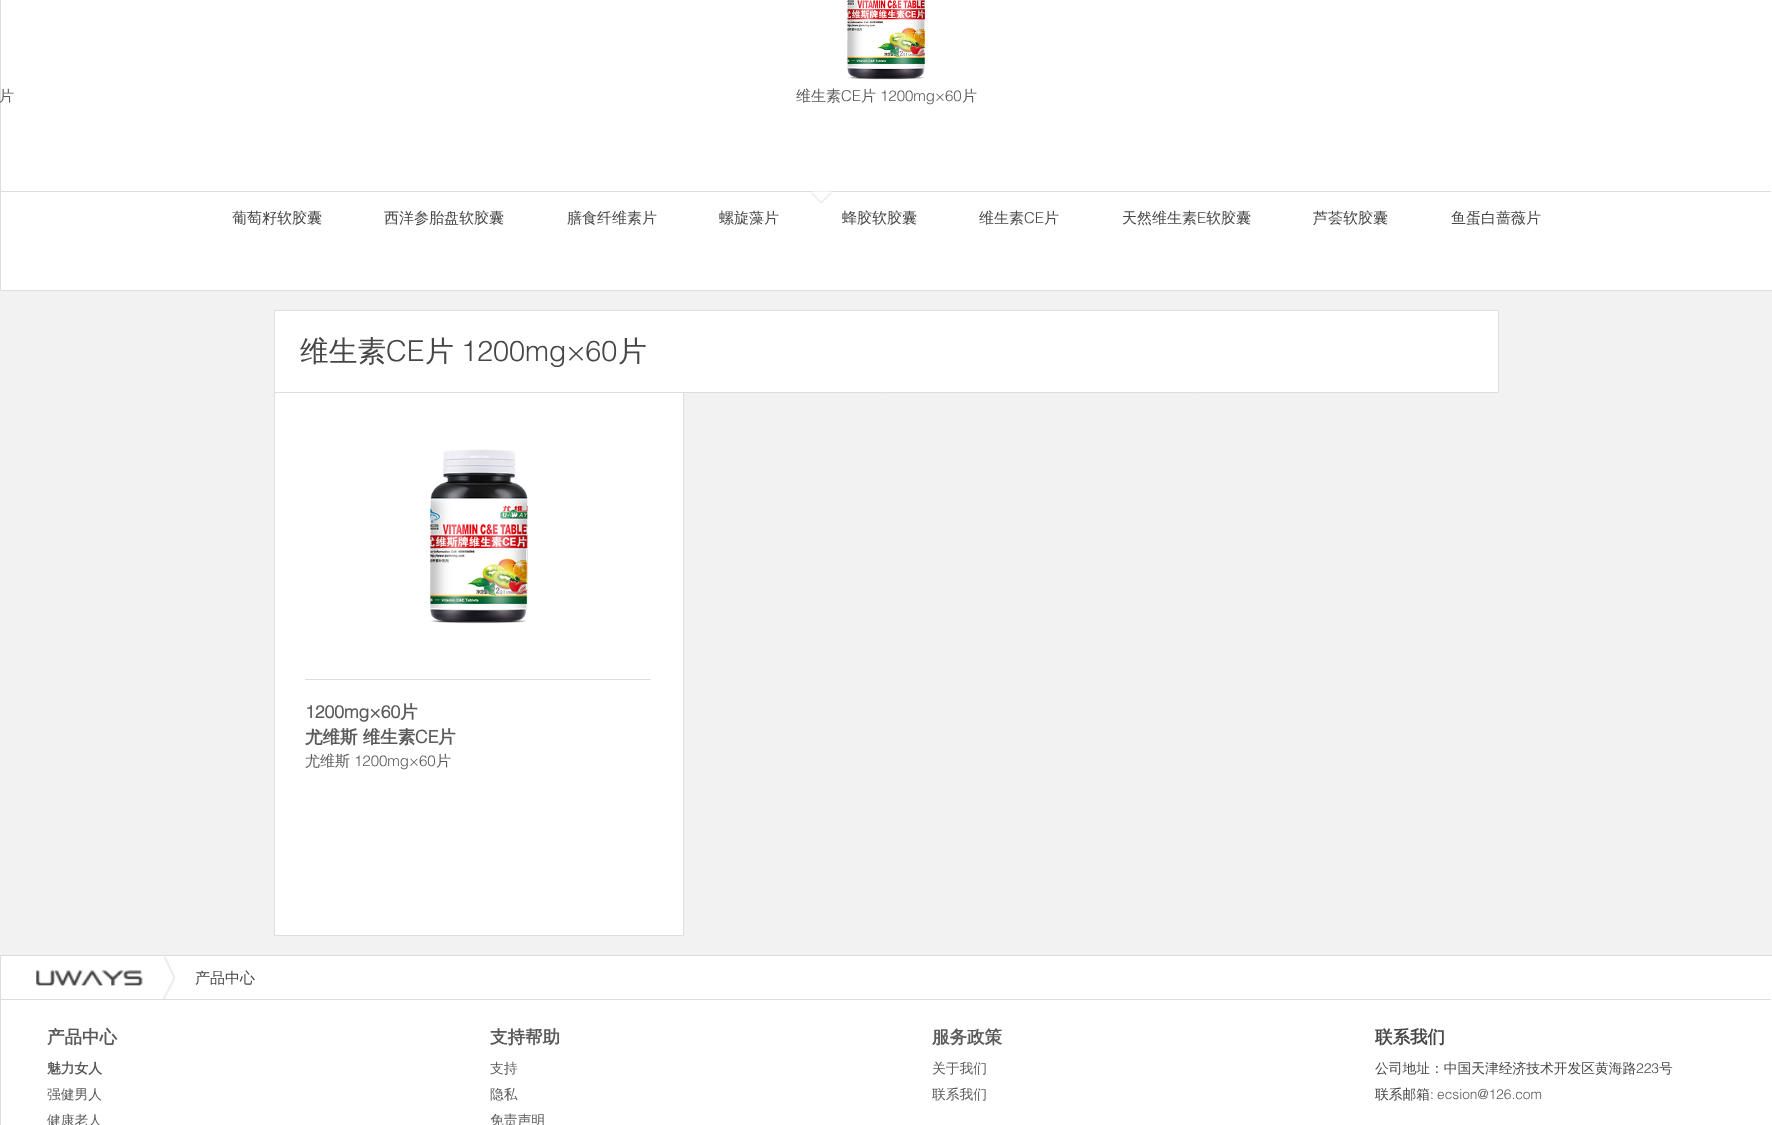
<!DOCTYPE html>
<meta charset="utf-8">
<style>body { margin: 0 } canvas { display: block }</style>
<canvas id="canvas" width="1772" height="1125"></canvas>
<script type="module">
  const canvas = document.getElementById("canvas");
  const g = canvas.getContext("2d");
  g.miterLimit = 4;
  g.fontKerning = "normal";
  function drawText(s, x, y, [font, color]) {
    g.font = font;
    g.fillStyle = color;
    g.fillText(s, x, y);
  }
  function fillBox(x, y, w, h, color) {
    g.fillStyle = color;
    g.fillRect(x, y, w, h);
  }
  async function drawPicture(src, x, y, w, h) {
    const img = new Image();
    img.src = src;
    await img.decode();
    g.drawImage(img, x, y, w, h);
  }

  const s1 = ["500 15px WenQuanYi Zen Hei", "#5A5A5A"];
  const s2 = ["300 15px Helvetica", "#5A5A5A"];
  const s3 = ["500 15px WenQuanYi Zen Hei", "#464646"];
  const s4 = ["300 15px Helvetica", "#464646"];
  const s5 = ["500 28.75px WenQuanYi Zen Hei", "#464646"];
  const s6 = ["300 28.75px Helvetica", "#464646"];
  const s7 = ["bold 17.5px Helvetica", "#5A5A5A"];
  const s8 = ["bold 17.5px WenQuanYi Zen Hei", "#5A5A5A"];
  const s9 = ["bold 13.75px WenQuanYi Zen Hei", "#5A5A5A"];
  const s10 = ["500 13.75px WenQuanYi Zen Hei", "#5A5A5A"];
  const s11 = ["bold 17.5px WenQuanYi Zen Hei", "#464646"];
  const s12 = ["500 13.75px WenQuanYi Zen Hei", "#464646"];
  const s13 = ["300 13.75px Helvetica", "#464646"];
  const s14 = ["300 13.75px Helvetica", "#5A5A5A"];

  fillBox(0, 0, 1772, 1125, "#F2F2F2");
  g.fillStyle = "#FFFFFF";
  g.beginPath();
  g.rect(0.5, -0.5, 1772, 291);
  g.fill();
  g.strokeStyle = "#DDDDDD";
  g.stroke();
  fillBox(1, 191, 1770, 1, "#DDDDDD");
  drawText("片", -1, 101, s1);
  await drawPicture("pic1.png", 847, 0, 79, 80);
  drawText("维生素", 796, 101, s1);
  drawText("CE", 841, 101, s2);
  drawText("片", 861, 101, s1);
  drawText("1200mg×60", 880, 101, s2);
  drawText("片", 962, 101, s1);
  await drawPicture("pic2.png", 811, 191, 21, 12);
  drawText("葡萄籽软胶囊", 232, 223, s3);
  drawText("西洋参胎盘软胶囊", 384, 223, s3);
  drawText("膳食纤维素片", 567, 223, s3);
  drawText("螺旋藻片", 719, 223, s3);
  drawText("蜂胶软胶囊", 842, 223, s3);
  drawText("维生素", 979, 223, s3);
  drawText("CE", 1024, 223, s4);
  drawText("片", 1044, 223, s3);
  drawText("天然维生素", 1122, 223, s3);
  drawText("E", 1197, 223, s4);
  drawText("软胶囊", 1206, 223, s3);
  drawText("芦荟软胶囊", 1313, 223, s3);
  drawText("鱼蛋白蔷薇片", 1451, 223, s3);
  g.fillStyle = "#FFFFFF";
  g.beginPath();
  g.rect(274.5, 310.5, 1224, 82);
  g.fill();
  g.stroke();
  drawText("维生素", 300, 361, s5);
  drawText("CE", 386, 361, s6);
  drawText("片", 425, 361, s5);
  drawText("1200mg×60", 461, 361, s6);
  drawText("片", 618, 361, s5);
  fillBox(274, 393, 1, 543, "#DDDDDD");
  fillBox(275, 393, 408, 542, "#FFFFFF");
  g.save();
  g.beginPath();
  g.rect(275, 393, 1224, 543);
  g.clip();
  g.strokeRect(273.5, 391.5, 410, 544);
  g.restore();
  fillBox(305, 679, 346, 1, "#DDDDDD");
  await drawPicture("pic3.png", 430, 449, 98, 175);
  drawText("1200mg×60", 305, 718, s7);
  drawText("片", 400, 718, s8);
  drawText("尤维斯 维生素", 305, 743, s8);
  drawText("CE", 415, 743, s7);
  drawText("片", 438, 743, s8);
  drawText("尤维斯", 305, 766, s1);
  drawText("1200mg×60", 354, 766, s2);
  drawText("片", 436, 766, s1);
  g.fillStyle = "#FFFFFF";
  g.beginPath();
  g.rect(0.5, 955.5, 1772, 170);
  g.fill();
  g.stroke();
  fillBox(1, 999, 1770, 1, "#DDDDDD");
  await drawPicture("pic4.png", 162, 956, 13, 43);
  await drawPicture("pic5.png", 36, 970, 107, 16);
  drawText("产品中心", 195, 983, s3);
  drawText("产品中心", 47, 1043, s8);
  drawText("魅力女人", 47, 1073, s9);
  drawText("强健男人", 47, 1099, s10);
  drawText("健康老人", 47, 1125, s10);
  drawText("支持帮助", 490, 1043, s8);
  drawText("支持", 490, 1073, s10);
  drawText("隐私", 490, 1099, s10);
  drawText("免责声明", 490, 1125, s10);
  drawText("服务政策", 932, 1043, s8);
  drawText("关于我们", 932, 1073, s10);
  drawText("联系我们", 932, 1099, s10);
  drawText("联系我们", 1375, 1043, s11);
  drawText("公司地址：中国天津经济技术开发区黄海路", 1375, 1073, s12);
  drawText("223", 1636, 1073, s13);
  drawText("号", 1659, 1073, s12);
  drawText("联系邮箱", 1375, 1099, s12);
  drawText(":", 1430, 1099, s13);
  drawText("ecsion@126.com", 1437, 1099, s14);
</script>
